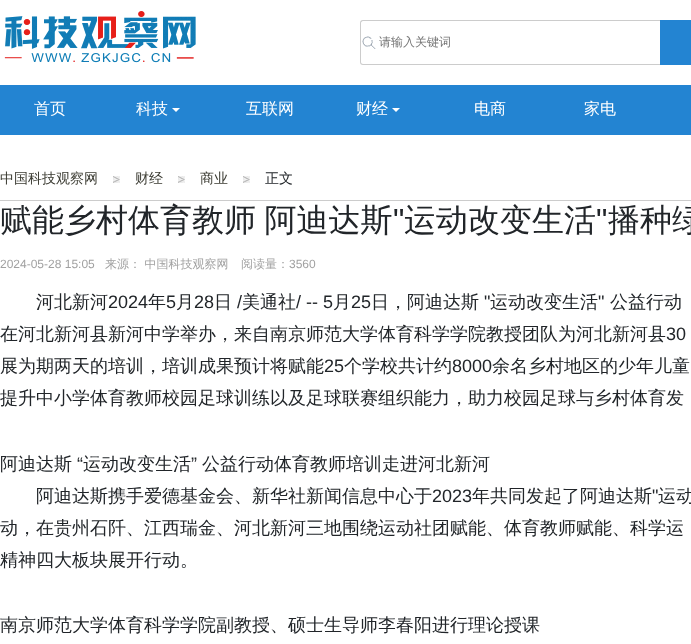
<!DOCTYPE html>
<meta charset="utf-8">
<style>body { margin: 0 } canvas { display: block }</style>
<canvas id="canvas" width="691" height="644"></canvas>
<script type="module">
  const canvas = document.getElementById("canvas");
  const g = canvas.getContext("2d");
  g.miterLimit = 4;
  g.fontKerning = "normal";
  function drawText(s, x, y, [font, color]) {
    g.font = font;
    g.fillStyle = color;
    g.fillText(s, x, y);
  }
  function fillBox(x, y, w, h, color) {
    g.fillStyle = color;
    g.fillRect(x, y, w, h);
  }
  async function drawPicture(src, x, y, w, h) {
    const img = new Image();
    img.src = src;
    await img.decode();
    g.drawImage(img, x, y, w, h);
  }

  const s1 = ["500 12px WenQuanYi Zen Hei", "#757575"];
  const s2 = ["500 16px WenQuanYi Zen Hei", "#FFFFFF"];
  const s3 = ["500 14px WenQuanYi Zen Hei", "#3A3A31"];
  const s4 = ["500 14px WenQuanYi Zen Hei", "#212529"];
  const s5 = ["500 32px WenQuanYi Zen Hei", "#212529"];
  const s6 = ["32px Liberation Sans", "#212529"];
  const s7 = ["12px Liberation Sans", "#A1A1A1"];
  const s8 = ["500 12px WenQuanYi Zen Hei", "#A1A1A1"];
  const s9 = ["500 18px WenQuanYi Zen Hei", "#212529"];
  const s10 = ["18px Liberation Sans", "#212529"];

  fillBox(0, 0, 691, 644, "#FFFFFF");
  await drawPicture("pic1.png", 4, 11, 192, 52);
  await drawPicture("pic2.png", 362, 36, 14, 13);
  g.fillStyle = "#CCCCCC";
  g.beginPath();
  g.moveTo(363, 20);
  g.lineTo(660, 20);
  g.lineTo(660, 65);
  g.lineTo(363, 65);
  g.bezierCurveTo(361, 65, 360, 64, 360, 62);
  g.lineTo(360, 23);
  g.bezierCurveTo(360, 21, 361, 20, 363, 20);
  g.closePath();
  g.moveTo(363, 21);
  g.lineTo(660, 21);
  g.lineTo(660, 64);
  g.lineTo(363, 64);
  g.bezierCurveTo(362, 64, 361, 63, 361, 62);
  g.lineTo(361, 23);
  g.bezierCurveTo(361, 22, 362, 21, 363, 21);
  g.closePath();
  g.fill("evenodd");
  drawText("请输入关键词", 379, 46, s1);
  fillBox(660, 20, 31, 45, "#2384D2");
  fillBox(0, 85, 691, 50, "#2384D2");
  drawText("首页", 34, 114, s2);
  drawText("科技", 136, 114, s2);
  await drawPicture("pic3.png", 172, 108, 8, 4);
  drawText("互联网", 246, 114, s2);
  drawText("财经", 356, 114, s2);
  await drawPicture("pic3.png", 392, 108, 8, 4);
  drawText("电商", 474, 114, s2);
  drawText("家电", 584, 114, s2);
  fillBox(0, 200, 691, 1, "#CCCCCC");
  await drawPicture("pic4.png", 113, 176, 7, 7);
  drawText("中国科技观察网", 0, 183, s3);
  await drawPicture("pic4.png", 178, 176, 7, 7);
  drawText("财经", 135, 183, s3);
  await drawPicture("pic4.png", 243, 176, 7, 7);
  drawText("商业", 200, 183, s3);
  drawText("正文", 265, 183, s4);
  g.wordSpacing = "-1px";
  drawText("赋能乡村体育教师 阿迪达斯", 0, 231, s5);
  g.wordSpacing = "0px";
  drawText("\"", 393, 231, s6);
  drawText("运动改变生活", 404, 231, s5);
  drawText("\"", 596, 231, s6);
  drawText("播种绿", 608, 231, s5);
  drawText("2024-05-28 15:05", 0, 268, s7);
  drawText("来源： 中国科技观察网", 105, 268, s8);
  drawText("阅读量：", 241, 268, s8);
  drawText("3560", 289, 268, s7);
  drawText("河北新河", 36, 308, s9);
  drawText("2024", 108, 308, s10);
  drawText("年", 148, 308, s9);
  drawText("5", 166, 308, s10);
  drawText("月", 176, 308, s9);
  drawText("28", 194, 308, s10);
  drawText("日", 214, 308, s9);
  drawText("/", 237, 308, s10);
  drawText("美通社", 242, 308, s9);
  drawText("/ -- 5", 296, 308, s10);
  drawText("月", 333, 308, s9);
  drawText("25", 351, 308, s10);
  drawText("日，阿迪达斯", 371, 308, s9);
  drawText("\"", 484, 308, s10);
  drawText("运动改变生活", 490, 308, s9);
  drawText("\"", 598, 308, s10);
  drawText("公益行动", 610, 308, s9);
  drawText("在河北新河县新河中学举办，来自南京师范大学体育科学学院教授团队为河北新河县", 0, 340, s9);
  drawText("30", 666, 340, s10);
  drawText("展为期两天的培训，培训成果预计将赋能", 0, 372, s9);
  drawText("25", 324, 372, s10);
  drawText("个学校共计约", 344, 372, s9);
  drawText("8000", 452, 372, s10);
  drawText("余名乡村地区的少年儿童", 492, 372, s9);
  drawText("提升中小学体育教师校园足球训练以及足球联赛组织能力，助力校园足球与乡村体育发", 0, 404, s9);
  drawText("阿迪达斯", 0, 470, s9);
  drawText("“", 77, 470, s10);
  drawText("运动改变生活", 83, 470, s9);
  drawText("”", 191, 470, s10);
  drawText("公益行动体育教师培训走进河北新河", 202, 470, s9);
  drawText("阿迪达斯携手爱德基金会、新华社新闻信息中心于", 36, 502, s9);
  drawText("2023", 432, 502, s10);
  drawText("年共同发起了阿迪达斯", 472, 502, s9);
  drawText("\"", 652, 502, s10);
  drawText("运动", 658, 502, s9);
  drawText("动，在贵州石阡、江西瑞金、河北新河三地围绕运动社团赋能、体育教师赋能、科学运", 0, 534, s9);
  drawText("精神四大板块展开行动。", 0, 566, s9);
  drawText("南京师范大学体育科学学院副教授、硕士生导师李春阳进行理论授课", 0, 631, s9);
</script>
